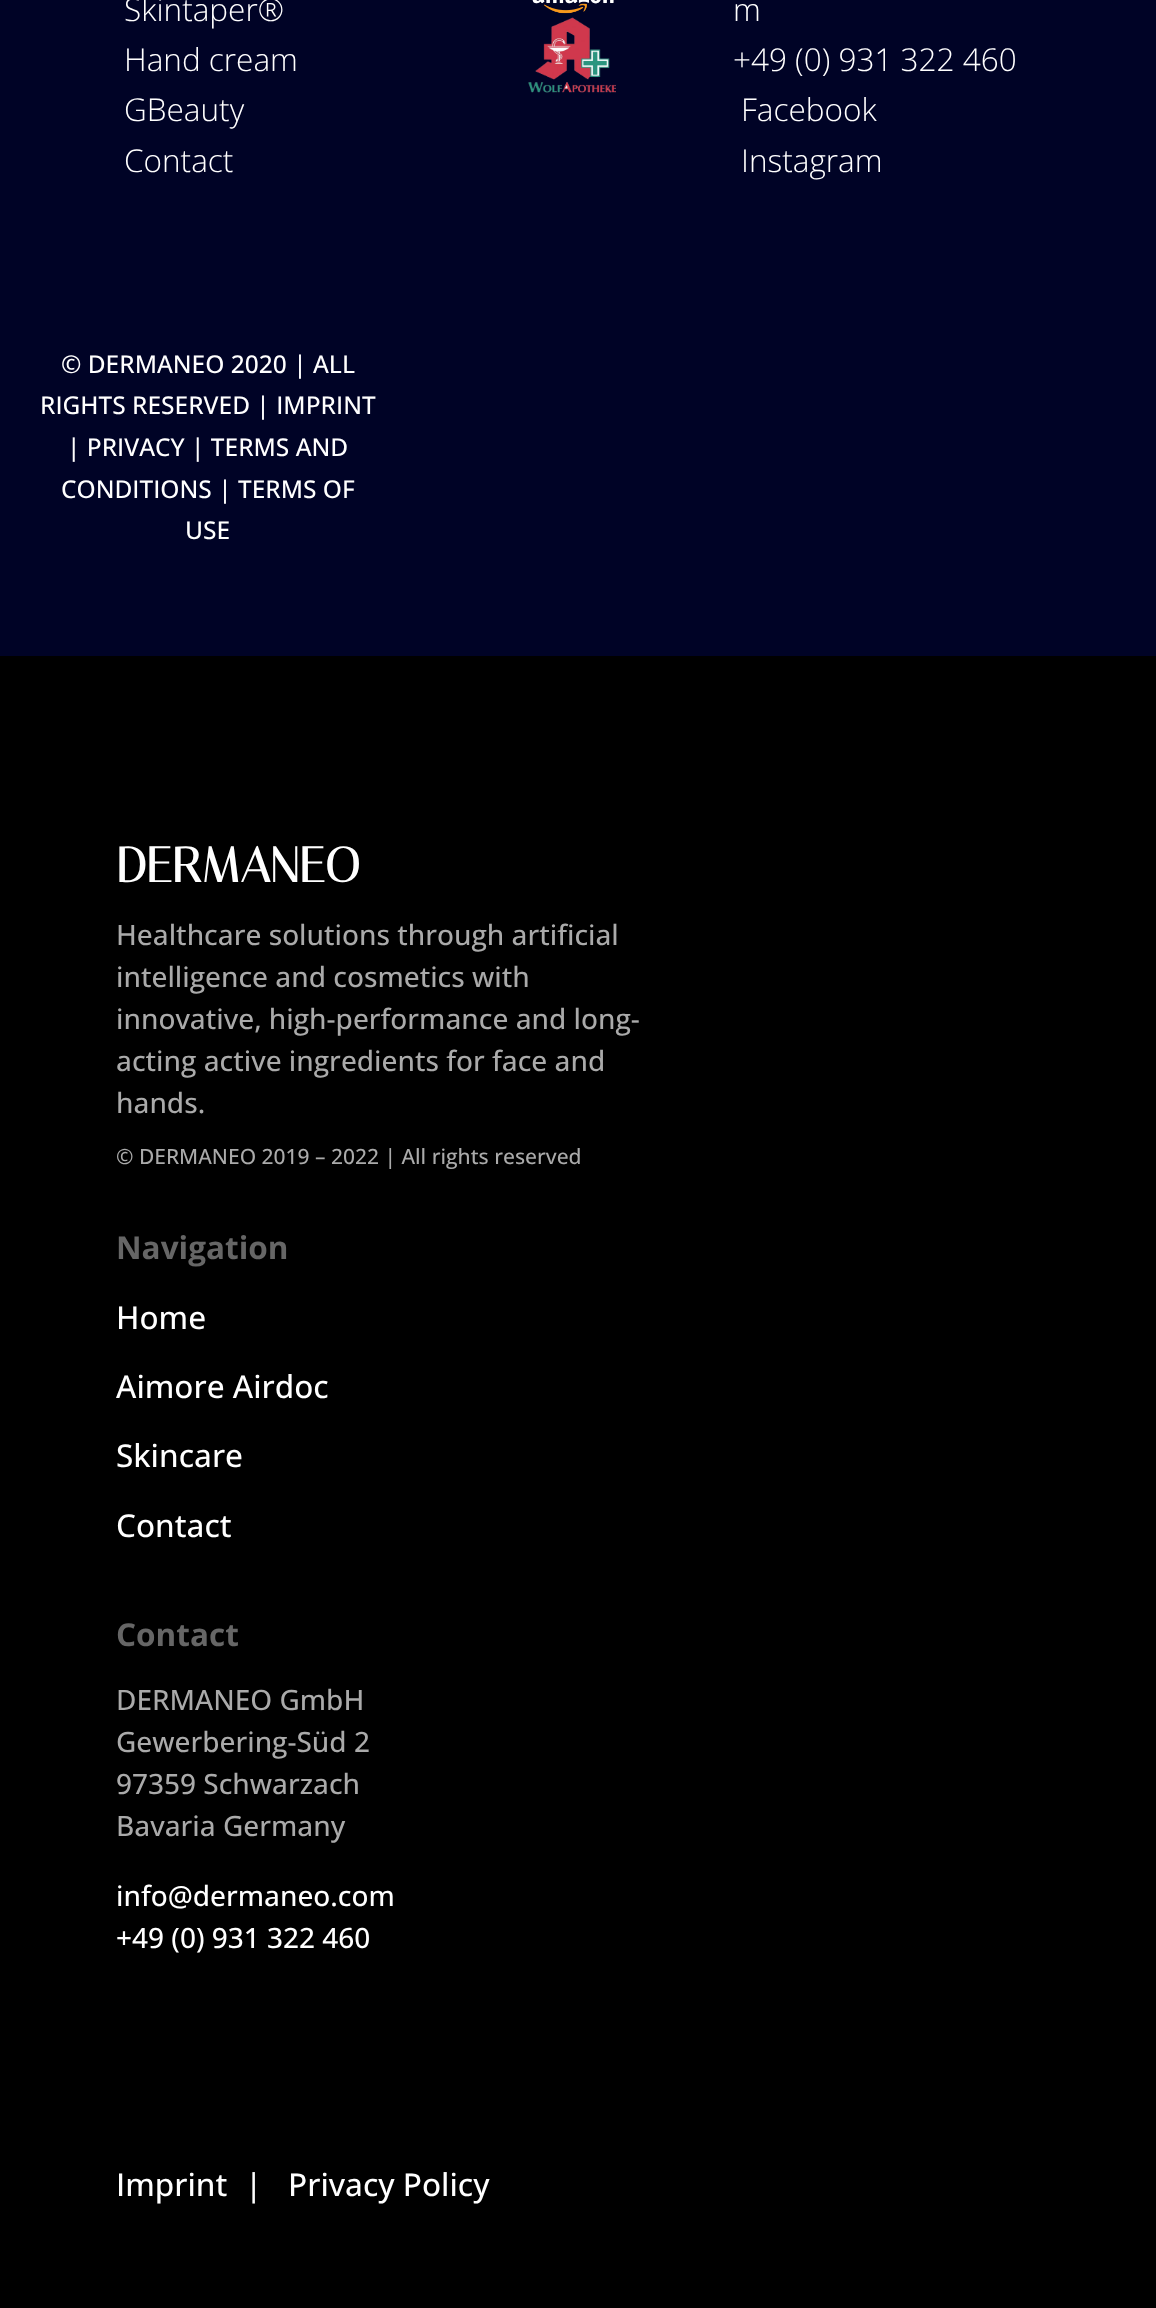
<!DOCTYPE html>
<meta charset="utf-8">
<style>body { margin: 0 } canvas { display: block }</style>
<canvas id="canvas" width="1156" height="2308"></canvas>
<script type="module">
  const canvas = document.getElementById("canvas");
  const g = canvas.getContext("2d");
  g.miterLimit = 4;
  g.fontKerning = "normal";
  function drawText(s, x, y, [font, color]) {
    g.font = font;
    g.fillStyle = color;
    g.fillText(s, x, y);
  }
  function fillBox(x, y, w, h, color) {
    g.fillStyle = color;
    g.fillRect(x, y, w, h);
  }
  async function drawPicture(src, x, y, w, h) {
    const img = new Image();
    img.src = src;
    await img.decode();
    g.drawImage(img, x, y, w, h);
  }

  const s1 = ["300 31.5px Open Sans", "#FFFFFF"];
  const s2 = ["500 24.5px Open Sans", "#FFFFFF"];
  const s3 = ["bold 49px Italiana", "#FFFFFF"];
  const s4 = ["500 28px Open Sans", "#AAAAAA"];
  const s5 = ["500 21px Open Sans", "#AAAAAA"];
  const s6 = ["bold 31.5px Open Sans", "#666666"];
  const s7 = ["500 31.5px Open Sans", "#FFFFFF"];
  const s8 = ["500 28px Open Sans", "#FFFFFF"];

  fillBox(0, 0, 1156, 2308, "#000326");
  drawText("Skintaper®", 124, 21, s1);
  drawText("Hand cream", 124, 71, s1);
  drawText("GBeauty", 124, 121, s1);
  drawText("Contact", 124, 172, s1);
  await drawPicture("pic1.png", 532, 0, 82, 14);
  await drawPicture("pic2.png", 528, 17, 88, 76);
  drawText("m", 733, 21, s1);
  drawText("+49 (0) 931 322 460", 733, 71, s1);
  drawText("Facebook", 741, 121, s1);
  drawText("Instagram", 741, 172, s1);
  drawText("© DERMANEO 2020 | ALL", 61, 373, s2);
  drawText("RIGHTS RESERVED | IMPRINT", 40, 414, s2);
  drawText("| PRIVACY | TERMS AND", 67, 456, s2);
  drawText("CONDITIONS | TERMS OF", 61, 498, s2);
  drawText("USE", 185, 539, s2);
  fillBox(0, 656, 1156, 1652, "#000000");
  drawText("DERMANEO", 116, 882, s3);
  drawText("Healthcare solutions through artificial", 116, 945, s4);
  drawText("intelligence and cosmetics with", 116, 987, s4);
  drawText("innovative, high-performance and long-", 116, 1029, s4);
  drawText("acting active ingredients for face and", 116, 1071, s4);
  drawText("hands.", 116, 1113, s4);
  drawText("© DERMANEO 2019 – 2022 | All rights reserved", 116, 1164, s5);
  drawText("Navigation", 116, 1259, s6);
  drawText("Home", 116, 1329, s7);
  drawText("Aimore Airdoc", 116, 1398, s7);
  drawText("Skincare", 116, 1467, s7);
  drawText("Contact", 116, 1537, s7);
  drawText("Contact", 116, 1646, s6);
  drawText("DERMANEO GmbH", 116, 1710, s4);
  drawText("Gewerbering-Süd 2", 116, 1752, s4);
  drawText("97359 Schwarzach", 116, 1794, s4);
  drawText("Bavaria Germany", 116, 1836, s4);
  drawText("info@dermaneo.com", 116, 1906, s8);
  drawText("+49 (0) 931 322 460", 116, 1948, s8);
  drawText("Imprint", 116, 2196, s7);
  drawText("|", 245, 2196, s7);
  drawText("Privacy Policy", 288, 2196, s7);
</script>
